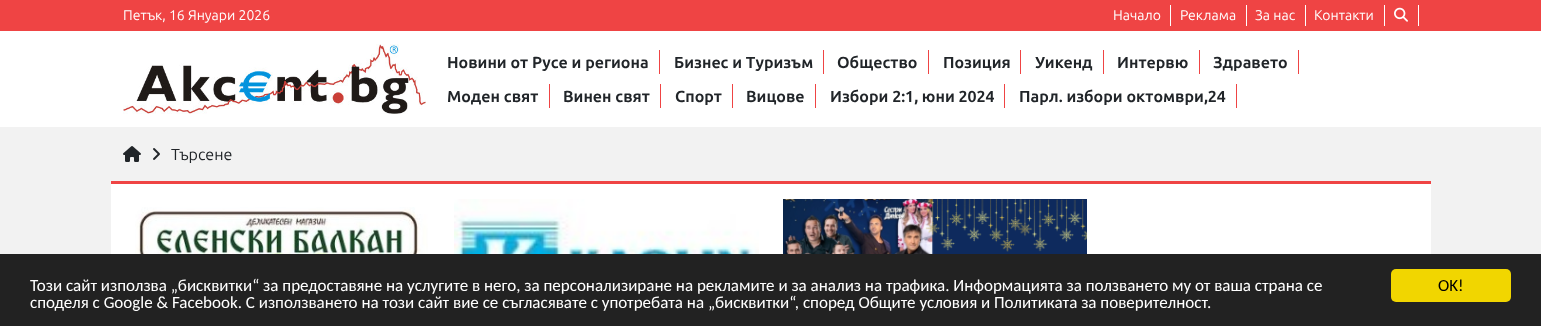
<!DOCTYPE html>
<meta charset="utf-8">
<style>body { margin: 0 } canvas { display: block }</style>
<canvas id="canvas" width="1541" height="326"></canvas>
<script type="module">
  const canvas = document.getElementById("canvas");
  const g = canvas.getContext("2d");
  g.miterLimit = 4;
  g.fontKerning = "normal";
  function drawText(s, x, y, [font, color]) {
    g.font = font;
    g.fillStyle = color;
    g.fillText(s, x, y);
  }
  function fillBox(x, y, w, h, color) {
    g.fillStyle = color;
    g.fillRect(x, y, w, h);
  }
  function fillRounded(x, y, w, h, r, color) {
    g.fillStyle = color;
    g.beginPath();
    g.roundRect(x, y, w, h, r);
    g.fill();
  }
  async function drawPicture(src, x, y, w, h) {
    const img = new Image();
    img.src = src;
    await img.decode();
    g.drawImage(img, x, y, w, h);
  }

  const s1 = ["14px Ubuntu", "#FFFFFF"];
  const s2 = ["bold 16px Ubuntu", "#212529"];
  const s3 = ["16px Ubuntu", "#212529"];
  const s4 = ["17px Carlito", "#FFFFFF"];
  const s5 = ["17px Carlito", "#000000"];

  fillBox(0, 0, 1541, 326, "#F2F2F2");
  fillBox(0, 31, 1541, 96, "#FFFFFF");
  fillBox(0, 0, 1541, 31, "#EF4444");
  drawText("Петък, 16 Януари 2026", 123, 20, s1);
  fillBox(1170, 5, 1, 21, "#FFFFFF");
  drawText("Начало", 1113, 20, s1);
  fillBox(1246, 5, 1, 21, "#FFFFFF");
  drawText("Реклама", 1180, 20, s1);
  fillBox(1305, 5, 1, 21, "#FFFFFF");
  drawText("За нас", 1255, 20, s1);
  fillBox(1384, 5, 1, 21, "#FFFFFF");
  drawText("Контакти", 1314, 20, s1);
  fillBox(1418, 5, 1, 21, "#FFFFFF");
  await drawPicture("pic1.png", 1394, 7, 14, 15);
  await drawPicture("pic2.png", 123, 44, 303, 70);
  fillBox(659, 50, 1, 24, "#EF4444");
  drawText("Новини от Русе и региона", 447, 68, s2);
  fillBox(823, 50, 1, 24, "#EF4444");
  drawText("Бизнес и Туризъм", 674, 68, s2);
  fillBox(928, 50, 1, 24, "#EF4444");
  drawText("Общество", 837, 68, s2);
  fillBox(1020, 50, 1, 24, "#EF4444");
  drawText("Позиция", 943, 68, s2);
  fillBox(1103, 50, 1, 24, "#EF4444");
  drawText("Уикенд", 1035, 68, s2);
  fillBox(1199, 50, 1, 24, "#EF4444");
  drawText("Интервю", 1117, 68, s2);
  fillBox(1298, 50, 1, 24, "#EF4444");
  drawText("Здравето", 1213, 68, s2);
  fillBox(549, 84, 1, 24, "#EF4444");
  drawText("Моден свят", 447, 102, s2);
  fillBox(660, 84, 1, 24, "#EF4444");
  drawText("Винен свят", 563, 102, s2);
  fillBox(732, 84, 1, 24, "#EF4444");
  drawText("Спорт", 675, 102, s2);
  fillBox(815, 84, 1, 24, "#EF4444");
  drawText("Вицове", 746, 102, s2);
  fillBox(1004, 84, 1, 24, "#EF4444");
  drawText("Избори 2:1, юни 2024", 830, 102, s2);
  fillBox(1236, 84, 1, 24, "#EF4444");
  drawText("Парл. избори октомври,24", 1019, 102, s2);
  await drawPicture("pic3.png", 123, 146, 18, 16);
  await drawPicture("pic4.png", 153, 148, 7, 12);
  drawText("Търсене", 171, 160, s3);
  fillBox(111, 184, 1320, 70, "#FFFFFF");
  fillBox(111, 181, 1320, 3, "#EF4444");
  await drawPicture("pic5.png", 135, 207, 293, 47);
  await drawPicture("pic6.png", 454, 199, 305, 55);
  await drawPicture("pic7.png", 783, 199, 304, 55);
  fillBox(0, 254, 1541, 72, "#222222");
  drawText("Този сайт използва „бисквитки“ за предоставяне на услугите в него, за персонализиране на рекламите и за анализ на трафика. Информацията за ползването му от ваша страна се", 30, 291, s4);
  drawText("споделя с Google & Facebook. С използването на този сайт вие се съгласявате с употребата на „бисквитки“, според Общите условия и", 30, 308, s4);
  drawText("Политиката за поверителност", 994, 308, s4);
  drawText(".", 1207, 308, s4);
  fillRounded(1391, 269, 120, 33, 5, "#F1D600");
  drawText("OK!", 1438, 291, s5);
</script>
